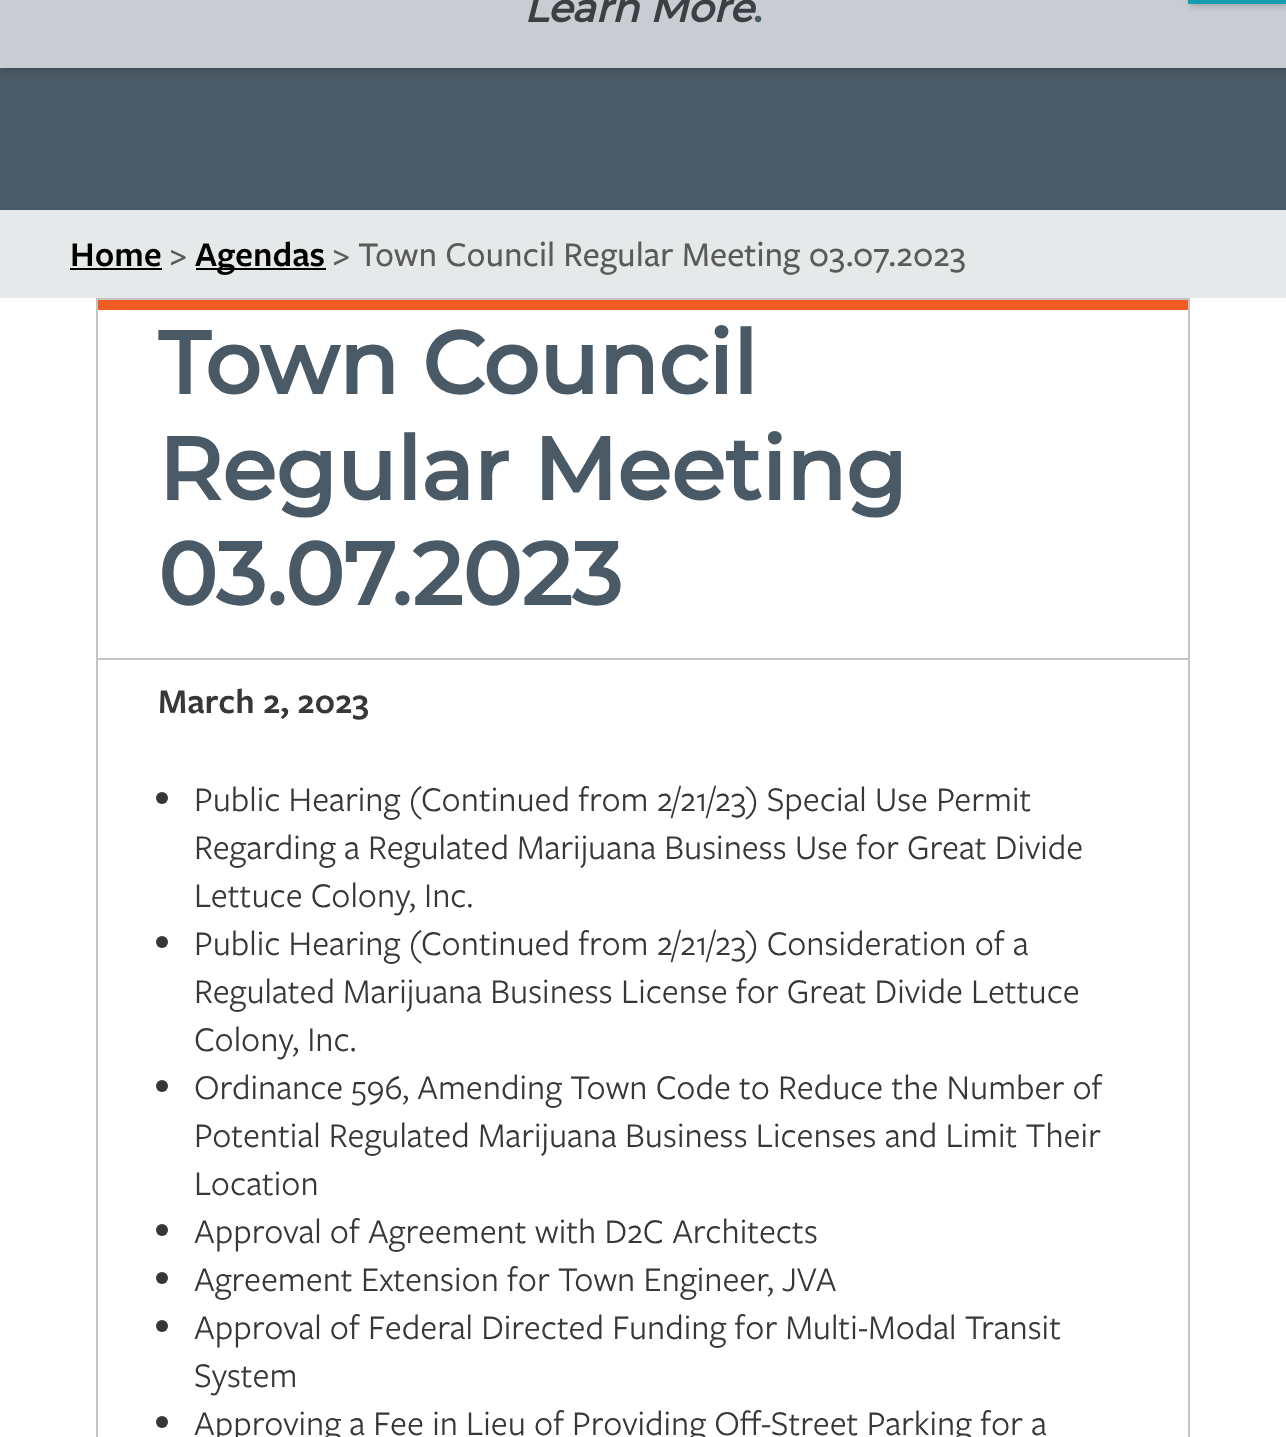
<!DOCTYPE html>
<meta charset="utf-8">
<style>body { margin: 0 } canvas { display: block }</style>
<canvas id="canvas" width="1286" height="1437"></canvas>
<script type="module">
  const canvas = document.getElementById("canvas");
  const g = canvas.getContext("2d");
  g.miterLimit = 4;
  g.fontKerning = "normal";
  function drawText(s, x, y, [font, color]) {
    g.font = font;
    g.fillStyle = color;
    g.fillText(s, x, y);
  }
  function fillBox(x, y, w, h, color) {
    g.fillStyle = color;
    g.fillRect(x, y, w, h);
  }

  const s1 = ["italic bold 40px Montserrat", "#3B4044"];
  const s2 = ["bold 40px Montserrat", "#495965"];
  const s3 = ["600 36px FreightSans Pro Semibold", "#000000"];
  const s4 = ["500 36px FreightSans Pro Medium", "#5A5A5A"];
  const s5 = ["bold 88px Montserrat", "#495965"];
  const s6 = ["600 36px FreightSans Pro Semibold", "#363737"];
  const s7 = ["36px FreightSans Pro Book", "#363737"];

  fillBox(0, 0, 1286, 1437, "#495965");
  g.fillStyle = "rgba(21, 26, 29, 0.23)";
  g.filter = "blur(3px)";
  g.beginPath();
  g.rect(2, -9, 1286, 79);
  g.fill();
  g.filter = "none";
  fillBox(0, 0, 1286, 68, "#C9CDD1");
  drawText("Learn More", 524, 22, s1);
  drawText(".", 753, 22, s2);
  g.fillStyle = "rgba(21, 26, 29, 0.23)";
  g.filter = "blur(3px)";
  g.beginPath();
  g.rect(1190, -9, 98, 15);
  g.fill();
  g.filter = "none";
  fillBox(1188, 0, 98, 4, "#149DB1");
  fillBox(0, 298, 1286, 1139, "#FFFFFF");
  fillBox(0, 210, 1286, 88, "#E6E9EA");
  drawText("Home", 70, 266, s3);
  fillBox(70, 268, 92, 2, "#000000");
  drawText(">", 170, 266, s4);
  fillBox(196, 268, 130, 2, "#000000");
  drawText("Agendas", 195, 266, s3);
  drawText("> Town Council Regular Meeting 03.07.2023", 333, 266, s4);
  g.strokeStyle = "#C4C4C4";
  g.lineWidth = 2;
  g.strokeRect(97, 299, 1092, 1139);
  fillBox(98, 300, 1090, 10, "#F15C22");
  fillBox(98, 658, 1090, 2, "#C4C4C4");
  drawText("Town Council", 158, 394, s5);
  drawText("Regular Meeting", 158, 500, s5);
  drawText("03.07.2023", 158, 605, s5);
  drawText("March 2, 2023", 158, 713, s6);
  g.beginPath();
  g.arc(162, 798, 6, 0, Math.PI * 2);
  g.fill();
  drawText("Public Hearing (Continued from 2/21/23) Special Use Permit", 194, 811, s7);
  drawText("Regarding a Regulated Marijuana Business Use for Great Divide", 194, 859, s7);
  drawText("Lettuce Colony, Inc.", 194, 907, s7);
  g.beginPath();
  g.arc(162, 942, 6, 0, Math.PI * 2);
  g.fill();
  drawText("Public Hearing (Continued from 2/21/23) Consideration of a", 194, 955, s7);
  drawText("Regulated Marijuana Business License for Great Divide Lettuce", 194, 1003, s7);
  drawText("Colony, Inc.", 194, 1051, s7);
  g.beginPath();
  g.arc(162, 1086, 6, 0, Math.PI * 2);
  g.fill();
  drawText("Ordinance 596, Amending Town Code to Reduce the Number of", 194, 1099, s7);
  drawText("Potential Regulated Marijuana Business Licenses and Limit Their", 194, 1147, s7);
  drawText("Location", 194, 1195, s7);
  g.beginPath();
  g.arc(162, 1230, 6, 0, Math.PI * 2);
  g.fill();
  drawText("Approval of Agreement with D2C Architects", 194, 1243, s7);
  g.beginPath();
  g.arc(162, 1278, 6, 0, Math.PI * 2);
  g.fill();
  drawText("Agreement Extension for Town Engineer, JVA", 194, 1291, s7);
  g.beginPath();
  g.arc(162, 1326, 6, 0, Math.PI * 2);
  g.fill();
  drawText("Approval of Federal Directed Funding for Multi-Modal Transit", 194, 1339, s7);
  drawText("System", 194, 1387, s7);
  g.beginPath();
  g.arc(162, 1422, 6, 0, Math.PI * 2);
  g.fill();
  drawText("Approving a Fee in Lieu of Providing Off-Street Parking for a", 194, 1435, s7);
</script>
